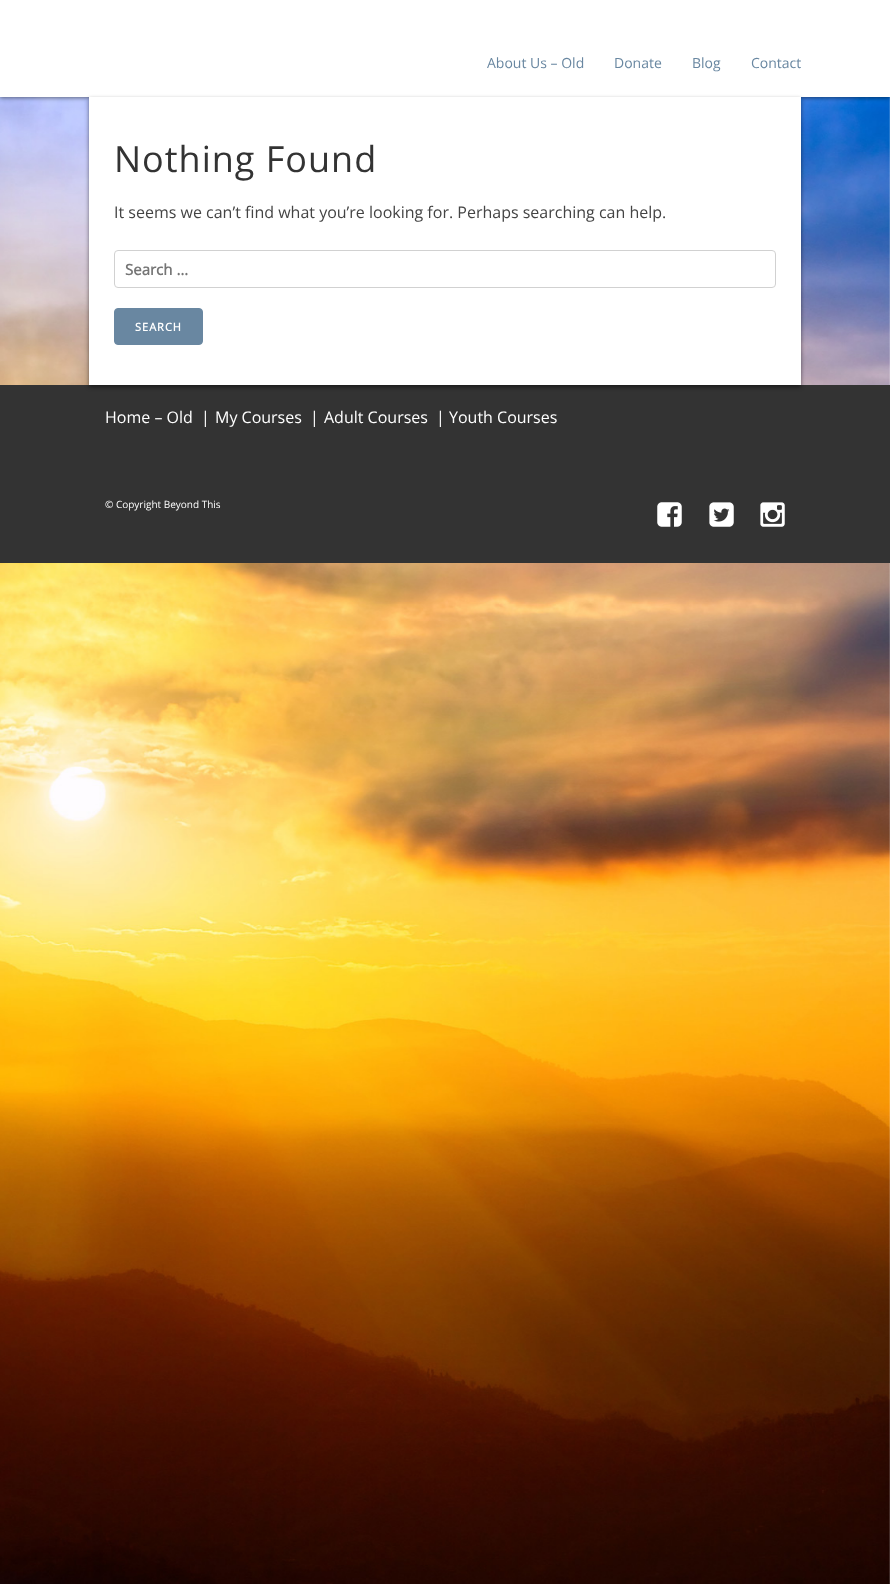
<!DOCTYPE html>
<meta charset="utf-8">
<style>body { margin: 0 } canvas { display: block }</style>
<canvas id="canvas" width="890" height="1584"></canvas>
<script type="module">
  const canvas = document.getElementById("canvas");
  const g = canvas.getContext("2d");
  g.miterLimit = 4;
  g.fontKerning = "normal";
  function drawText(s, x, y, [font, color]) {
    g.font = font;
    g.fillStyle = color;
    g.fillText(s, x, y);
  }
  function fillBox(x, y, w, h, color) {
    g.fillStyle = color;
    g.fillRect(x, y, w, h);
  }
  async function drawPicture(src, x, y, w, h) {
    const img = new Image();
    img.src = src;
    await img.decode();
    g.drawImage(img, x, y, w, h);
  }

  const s1 = ["14px Open Sans", "#6987A1"];
  const s2 = ["36px Open Sans", "#333333"];
  const s3 = ["16px Open Sans", "#444444"];
  const s4 = ["bold 15px Open Sans", "#757575"];
  const s5 = ["bold 11px Open Sans", "#FFFFFF"];
  const s6 = ["16px Open Sans", "#FFFFFF"];
  const s7 = ["10px Open Sans", "#FFFFFF"];

  fillBox(0, 0, 890, 1584, "#FFFFFF");
  await drawPicture("pic1.png", 0, 97, 890, 1487);
  g.fillStyle = "rgba(0, 0, 0, 0.5)";
  g.filter = "blur(2px)";
  g.beginPath();
  g.rect(0, 1, 890, 97);
  g.fill();
  g.filter = "none";
  fillBox(0, 0, 890, 97, "#FFFFFF");
  drawText("About Us – Old", 487, 68, s1);
  drawText("Donate", 614, 68, s1);
  drawText("Blog", 692, 68, s1);
  drawText("Contact", 751, 68, s1);
  fillBox(0, 385, 890, 178, "#333333");
  g.fillStyle = "rgba(0, 0, 0, 0.5)";
  g.filter = "blur(2px)";
  g.beginPath();
  g.rect(89, 99, 712, 288);
  g.fill();
  g.filter = "none";
  fillBox(89, 97, 712, 288, "#FFFFFF");
  g.letterSpacing = "1px";
  drawText("Nothing Found", 114, 172, s2);
  g.letterSpacing = "0px";
  drawText("It seems we can’t find what you’re looking for. Perhaps searching can help.", 114, 218, s3);
  g.beginPath();
  g.roundRect(114.5, 250.5, 661, 37, 3.5);
  g.strokeStyle = "#D1D1D1";
  g.stroke();
  drawText("Search …", 125, 275, s4);
  g.fillStyle = "#6987A1";
  g.beginPath();
  g.roundRect(114.5, 308.5, 88, 36, 3.5);
  g.fill();
  g.strokeStyle = "#6987A1";
  g.stroke();
  g.letterSpacing = "1px";
  drawText("SEARCH", 135, 331, s5);
  g.letterSpacing = "0px";
  drawText("Home – Old", 105, 423, s6);
  drawText("|", 201, 423, s6);
  drawText("My Courses", 215, 423, s6);
  drawText("|", 310, 423, s6);
  drawText("Adult Courses", 324, 423, s6);
  drawText("|", 436, 423, s6);
  drawText("Youth Courses", 449, 423, s6);
  drawText("© Copyright Beyond This", 105, 508, s7);
  await drawPicture("pic2.png", 657, 502, 25, 25);
  await drawPicture("pic3.png", 709, 502, 25, 25);
  await drawPicture("pic4.png", 760, 502, 25, 25);
</script>
